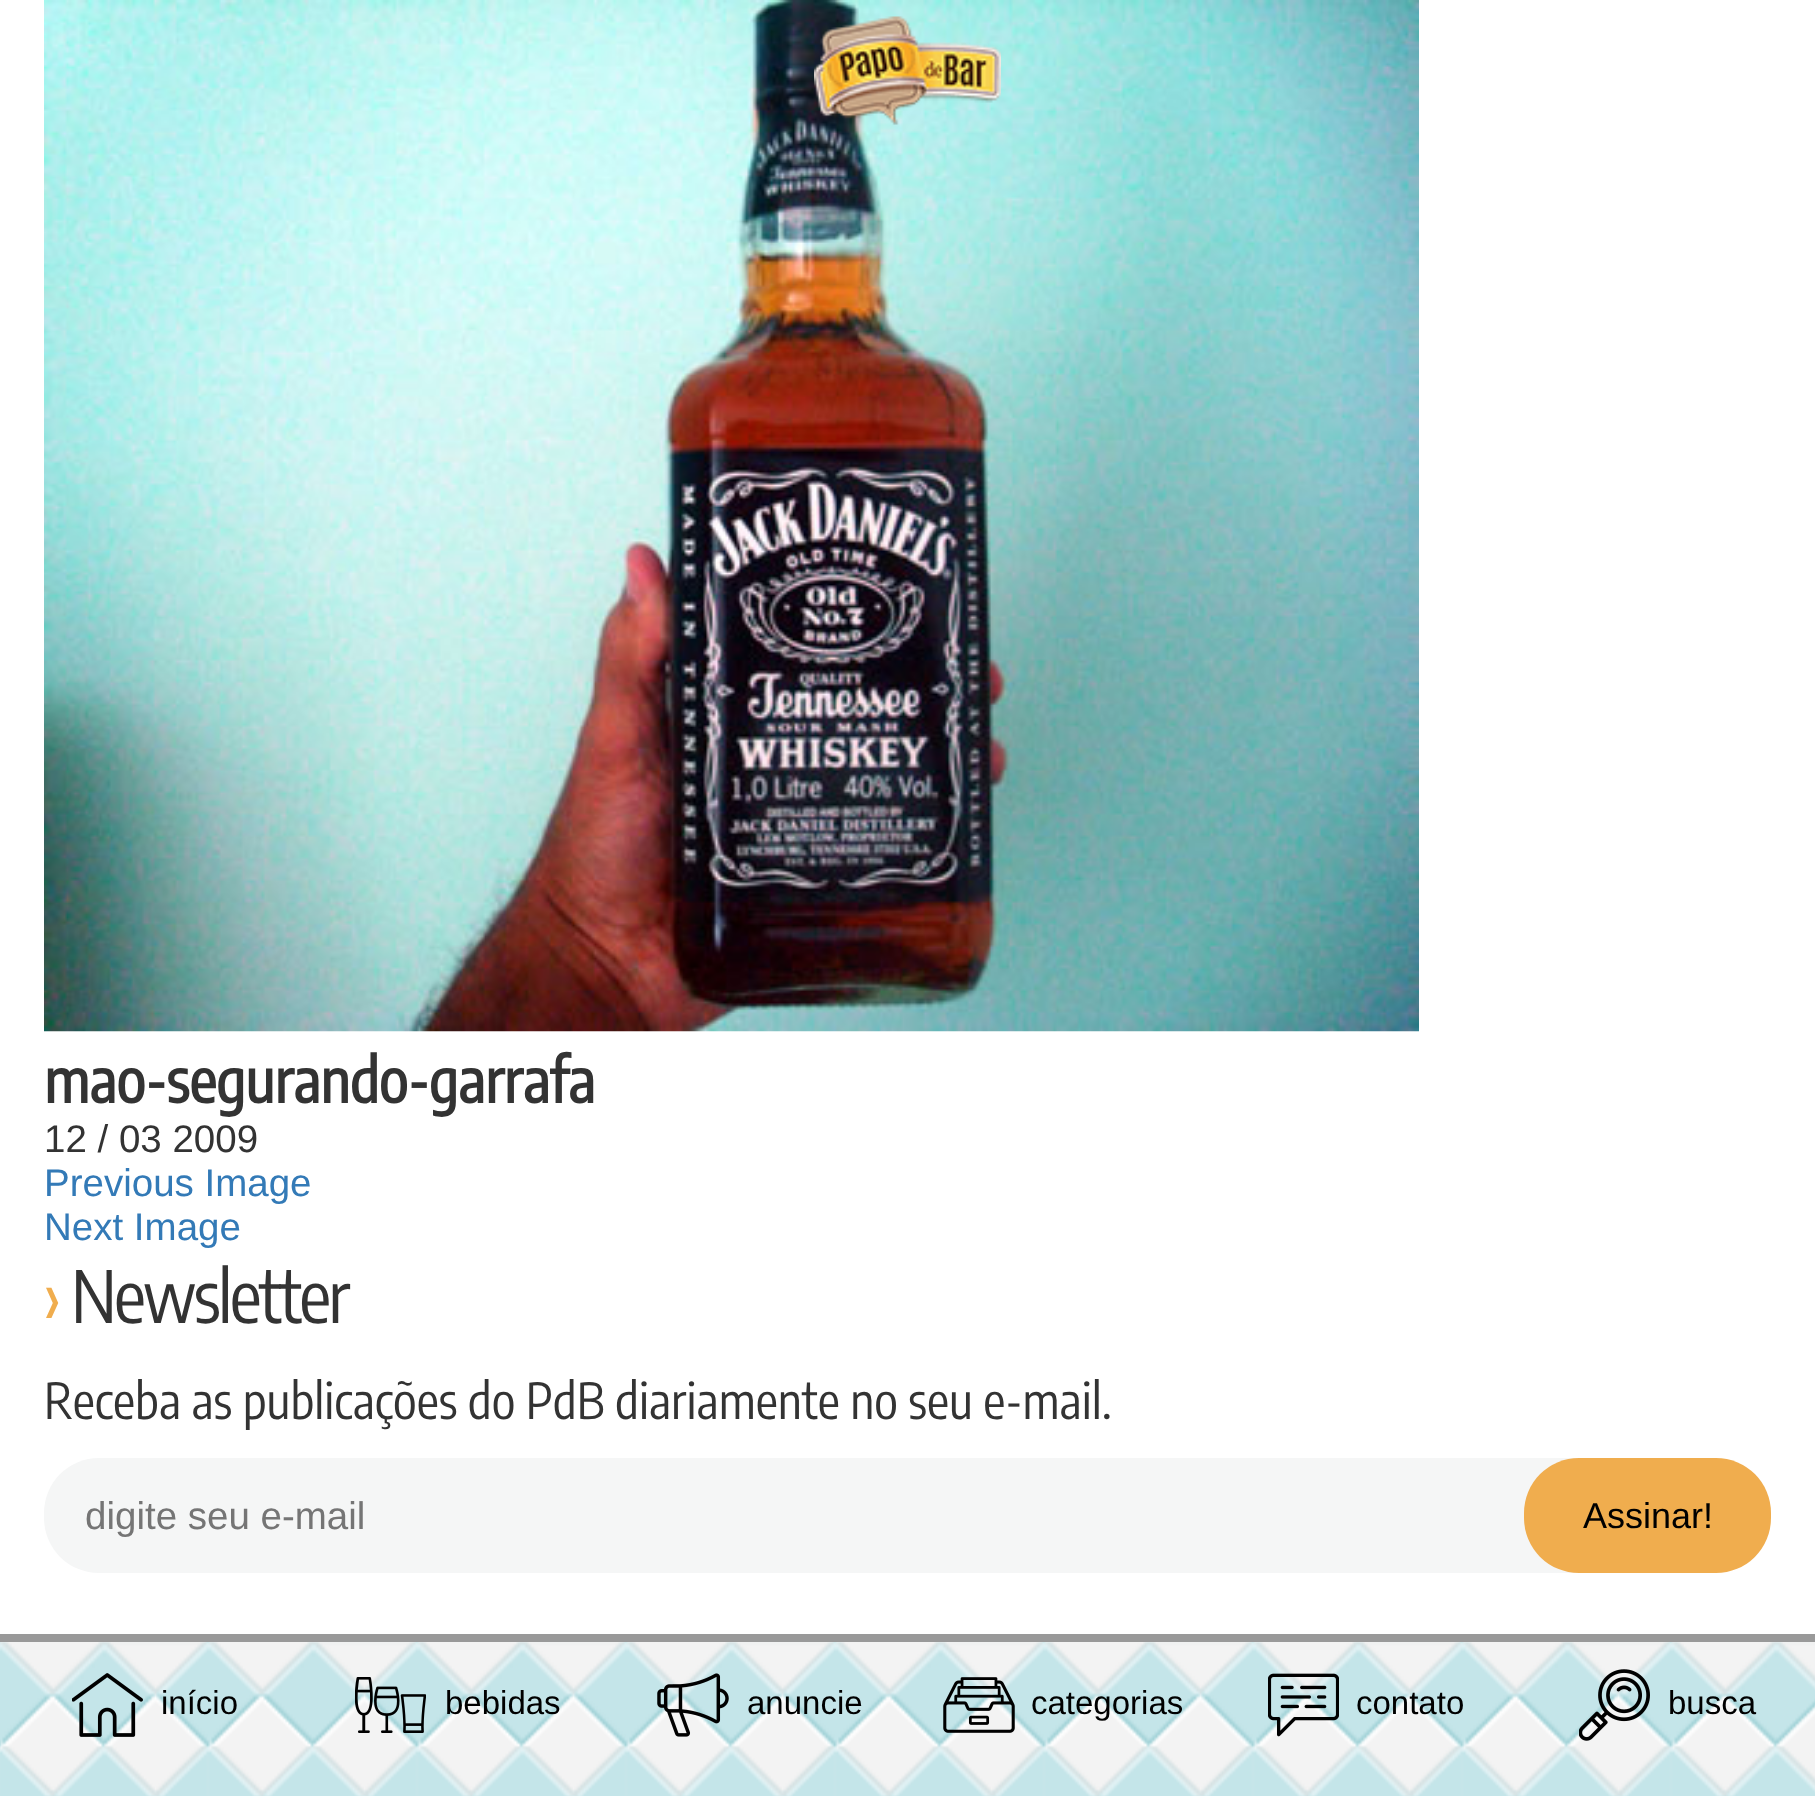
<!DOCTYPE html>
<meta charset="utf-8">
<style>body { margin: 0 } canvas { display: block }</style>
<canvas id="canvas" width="1815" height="1796"></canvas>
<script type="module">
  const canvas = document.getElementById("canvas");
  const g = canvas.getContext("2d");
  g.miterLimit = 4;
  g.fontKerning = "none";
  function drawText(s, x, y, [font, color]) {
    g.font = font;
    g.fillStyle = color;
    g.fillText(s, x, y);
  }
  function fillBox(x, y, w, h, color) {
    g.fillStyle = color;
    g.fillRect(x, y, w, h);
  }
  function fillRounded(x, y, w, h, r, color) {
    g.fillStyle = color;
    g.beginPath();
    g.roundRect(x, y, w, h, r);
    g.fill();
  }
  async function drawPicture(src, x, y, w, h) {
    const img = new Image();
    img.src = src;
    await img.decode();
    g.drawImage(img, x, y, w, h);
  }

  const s1 = ["bold 60.5px Encode Sans Condensed", "#333333"];
  const s2 = ["38.5px Liberation Sans", "#333333"];
  const s3 = ["38.5px Liberation Sans", "#337AB7"];
  const s4 = ["71.5px Encode Sans Condensed", "#F0AD4E"];
  const s5 = ["71.5px Encode Sans Condensed", "#333333"];
  const s6 = ["49.5px Encode Sans Condensed", "#333333"];
  const s7 = ["38.5px Liberation Sans", "#757575"];
  const s8 = ["36px Liberation Sans", "#000000"];
  const s9 = ["33px Liberation Sans", "#000000"];

  fillBox(0, 0, 1815, 1796, "#FFFFFF");
  await drawPicture("pic1.png", 44, 0, 1375, 1032);
  drawText("mao-segurando-garrafa", 44, 1103, s1);
  drawText("12 / 03 2009", 44, 1152, s2);
  drawText("Previous Image", 44, 1196, s3);
  drawText("Next Image", 44, 1240, s3);
  g.letterSpacing = "-2.75px";
  drawText("› ︎", 44, 1323, s4);
  drawText("Newsletter", 71, 1323, s5);
  g.letterSpacing = "0px";
  drawText("Receba as publicações do PdB diariamente no seu e-mail.", 44, 1419, s6);
  g.fillStyle = "#F5F6F6";
  g.beginPath();
  g.roundRect(44, 1458, 1645, 115, [55, 0, 0, 55]);
  g.fill();
  drawText("digite seu e-mail", 85, 1529, s7);
  fillRounded(1524, 1458, 247, 115, 55, "#F0AD4E");
  drawText("Assinar!", 1583, 1528, s8);
  await drawPicture("pic2.png", 814, 16, 187, 109);
  await drawPicture("pic3.png", 0, 1642, 1815, 154);
  fillBox(0, 1634, 1815, 8, "#999999");
  await drawPicture("pic4.png", 72, 1673, 71, 64);
  drawText("início", 161, 1714, s9);
  await drawPicture("pic5.png", 355, 1677, 71, 56);
  drawText("bebidas", 445, 1714, s9);
  await drawPicture("pic6.png", 657, 1673, 72, 64);
  drawText("anuncie", 747, 1714, s9);
  await drawPicture("pic7.png", 943, 1677, 72, 56);
  drawText("categorias", 1031, 1714, s9);
  await drawPicture("pic8.png", 1268, 1673, 71, 64);
  drawText("contato", 1356, 1714, s9);
  await drawPicture("pic9.png", 1579, 1669, 71, 72);
  drawText("busca", 1668, 1714, s9);
</script>
